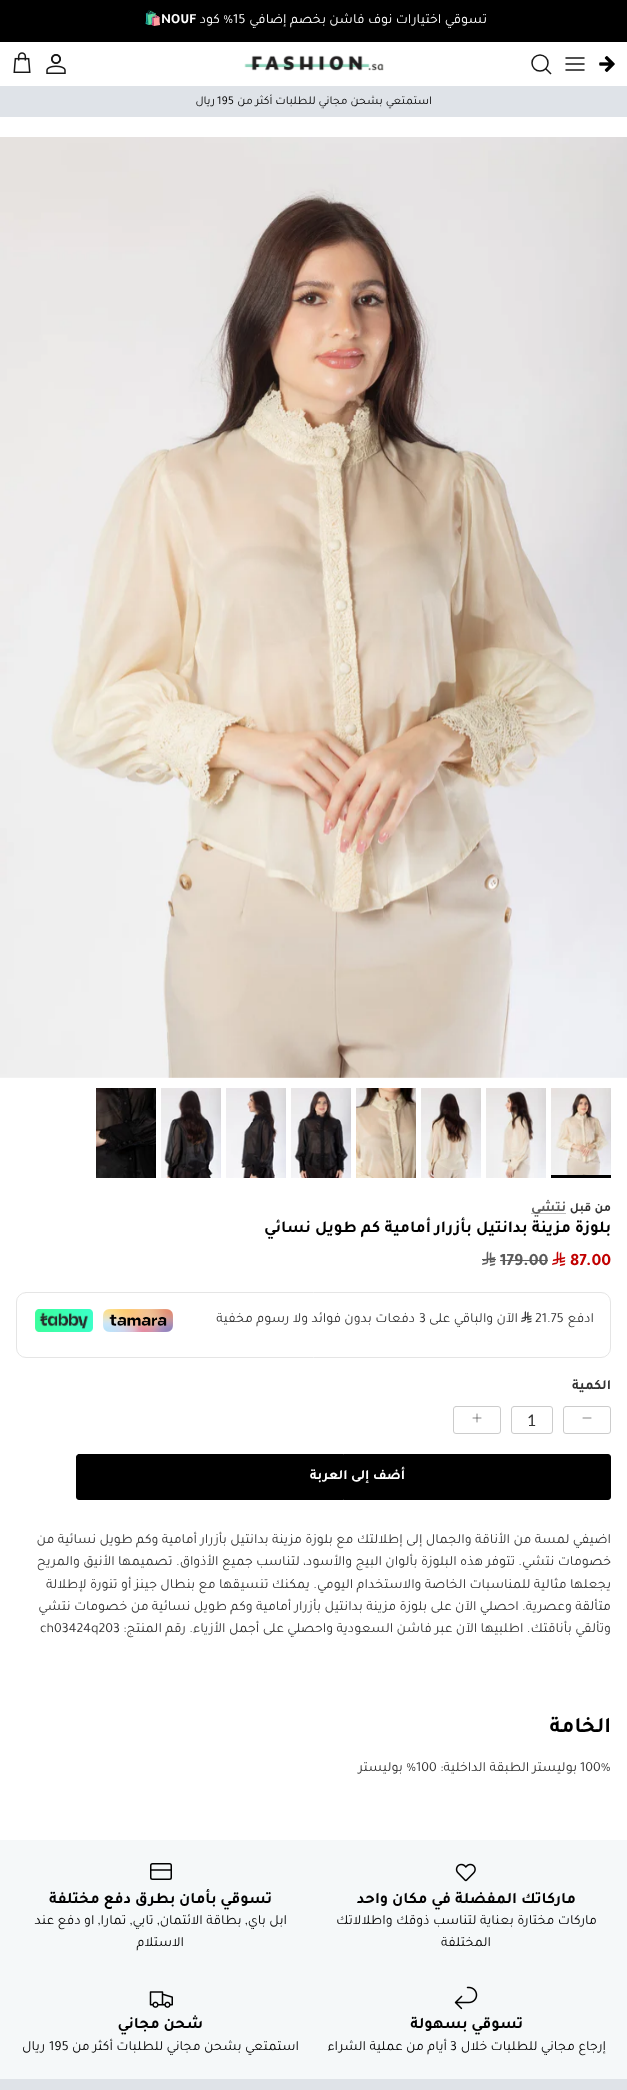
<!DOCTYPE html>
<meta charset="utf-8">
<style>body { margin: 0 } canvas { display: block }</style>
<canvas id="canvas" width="627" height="2090"></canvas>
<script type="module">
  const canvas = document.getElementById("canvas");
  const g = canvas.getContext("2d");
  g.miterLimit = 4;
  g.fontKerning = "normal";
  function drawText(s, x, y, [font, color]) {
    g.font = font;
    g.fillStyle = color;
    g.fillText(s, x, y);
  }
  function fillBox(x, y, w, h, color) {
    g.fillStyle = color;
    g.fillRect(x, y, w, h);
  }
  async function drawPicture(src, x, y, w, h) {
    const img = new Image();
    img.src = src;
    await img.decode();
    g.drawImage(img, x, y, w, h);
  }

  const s1 = ["14px Tajawal", "#FFFFFF"];
  const s2 = ["bold 14px Tajawal", "#FFFFFF"];
  const s3 = ["14px Noto Color Emoji", "#FFFFFF"];
  const s4 = ["12px Tajawal", "#000000"];
  const s5 = ["bold 12.5px Tajawal", "#333333"];
  const s6 = ["bold 14px Tajawal", "#5C5C5C"];
  const s7 = ["bold 16.8px Tajawal", "#000000"];
  const s8 = ["bold 17.5px Tajawal", "#C20000"];
  const s9 = ["bold 17.5px Tajawal", "#5C5C5C"];
  const s10 = ["14px Tajawal", "#333333"];
  const s11 = ["bold 14px Tajawal", "#333333"];
  const s12 = ["16px Lato", "#333333"];
  const s13 = ["bold 22px Tajawal", "#000000"];
  const s14 = ["bold 16.1px Tajawal", "#000000"];
  const s15 = ["14px Tajawal", "#000000"];

  fillBox(0, 0, 627, 2090, "#FFFFFF");
  fillBox(0, 0, 627, 42, "#000000");
  g.direction = "rtl";
  drawText("تسوقي اختيارات نوف فاشن بخصم إضافي", 487, 23, s1);
  g.direction = "ltr";
  drawText("15", 233, 23, s1);
  g.direction = "rtl";
  drawText("% كود", 233, 23, s1);
  g.direction = "ltr";
  drawText("NOUF", 161, 23, s2);
  drawText("🛍️", 144, 23, s3);
  await drawPicture("pic1.png", 599, 56, 16, 16);
  g.beginPath();
  g.moveTo(566, 64);
  g.lineTo(584, 64);
  g.moveTo(566, 58);
  g.lineTo(584, 58);
  g.moveTo(566, 70);
  g.lineTo(584, 70);
  g.strokeStyle = "#171717";
  g.lineWidth = 1.5;
  g.lineCap = "round";
  g.lineJoin = "round";
  g.stroke();
  g.beginPath();
  g.arc(540, 63, 8, 0, Math.PI * 2);
  g.stroke();
  g.beginPath();
  g.moveTo(546, 69);
  g.lineTo(550.5, 73.5);
  g.lineCap = "square";
  g.lineJoin = "miter";
  g.stroke();
  await drawPicture("pic2.png", 244, 55, 140, 16);
  await drawPicture("pic3.png", 46, 54, 20, 20);
  await drawPicture("pic4.png", 13, 52, 18, 21);
  fillBox(0, 86, 627, 31, "#DFE3E8");
  g.direction = "rtl";
  drawText("استمتعي بشحن مجاني للطلبات أكثر من", 432, 104, s4);
  g.direction = "ltr";
  drawText("195", 217, 104, s4);
  g.direction = "rtl";
  drawText("ريال", 215, 104, s4);
  await drawPicture("pic5.png", 0, 137, 627, 941);
  await drawPicture("pic6.png", 551, 1088, 60, 87);
  fillBox(551, 1175, 60, 3, "#000000");
  await drawPicture("pic7.png", 486, 1088, 60, 90);
  await drawPicture("pic8.png", 421, 1088, 60, 90);
  await drawPicture("pic9.png", 356, 1088, 60, 90);
  await drawPicture("pic10.png", 291, 1088, 60, 90);
  await drawPicture("pic11.png", 226, 1088, 60, 90);
  await drawPicture("pic12.png", 161, 1088, 60, 90);
  await drawPicture("pic13.png", 96, 1088, 60, 90);
  drawText("من قبل", 611, 1211, s5);
  fillBox(531, 1213, 35, 1, "#BEBEBE");
  drawText("نتشي", 566, 1211, s6);
  drawText("بلوزة مزينة بدانتيل بأزرار أمامية كم طويل نسائي", 611, 1232, s7);
  g.direction = "ltr";
  drawText("87.00", 570, 1265, s8);
  await drawPicture("pic14.png", 552, 1251, 14, 15);
  drawText("179.00", 500, 1265, s9);
  fillBox(500, 1260, 48, 1, "#5C5C5C");
  await drawPicture("pic15.png", 482, 1251, 14, 15);
  fillBox(482, 1259, 14, 1, "#5C5C5C");
  g.beginPath();
  g.roundRect(16.5, 1292.5, 594, 65, 9.5);
  g.strokeStyle = "#E5E5E5";
  g.lineWidth = 1;
  g.stroke();
  g.direction = "rtl";
  drawText("ادفع", 594, 1322, s10);
  g.direction = "ltr";
  drawText("21.75", 535, 1322, s10);
  await drawPicture("pic16.png", 521, 1311, 11, 12);
  g.direction = "rtl";
  drawText("الآن والباقي على", 518, 1322, s10);
  g.direction = "ltr";
  drawText("3", 419, 1322, s10);
  g.direction = "rtl";
  drawText("دفعات بدون فوائد ولا رسوم مخفية", 415, 1322, s10);
  await drawPicture("pic17.png", 103, 1309, 70, 23);
  await drawPicture("pic18.png", 35, 1309, 58, 23);
  drawText("الكمية", 611, 1389, s11);
  g.beginPath();
  g.roundRect(563.5, 1406.5, 47, 27, 2.5);
  g.strokeStyle = "#CCCCCC";
  g.stroke();
  g.beginPath();
  g.moveTo(583, 1418);
  g.lineTo(591, 1418);
  g.strokeStyle = "#333333";
  g.lineWidth = 0.6;
  g.lineCap = "round";
  g.lineJoin = "round";
  g.stroke();
  g.beginPath();
  g.roundRect(511.5, 1406.5, 41, 27, 2.5);
  g.strokeStyle = "#CCCCCC";
  g.lineWidth = 1;
  g.lineJoin = "miter";
  g.stroke();
  g.direction = "ltr";
  drawText("1", 527, 1426, s12);
  g.beginPath();
  g.roundRect(453.5, 1406.5, 47, 27, 2.5);
  g.stroke();
  g.beginPath();
  g.moveTo(477, 1414);
  g.lineTo(477, 1422);
  g.moveTo(473, 1418);
  g.lineTo(481, 1418);
  g.strokeStyle = "#333333";
  g.lineWidth = 0.6;
  g.lineJoin = "round";
  g.stroke();
  g.fillStyle = "#000000";
  g.beginPath();
  g.roundRect(76.5, 1454.5, 534, 45, 2.5);
  g.fill();
  g.strokeStyle = "#000000";
  g.lineWidth = 1;
  g.lineJoin = "miter";
  g.stroke();
  g.letterSpacing = "1.1px";
  g.wordSpacing = "-1px";
  g.direction = "rtl";
  drawText("أضف إلى العربة", 405, 1479, s2);
  g.letterSpacing = "0px";
  g.wordSpacing = "0px";
  drawText("اضيفي لمسة من الأناقة والجمال إلى إطلالتك مع بلوزة مزينة بدانتيل بأزرار أمامية وكم طويل نسائية من", 611, 1543, s10);
  drawText("خصومات نتشي. تتوفر هذه البلوزة بألوان البيج والأسود، لتناسب جميع الأذواق. تصميمها الأنيق والمريح", 611, 1565, s10);
  drawText("يجعلها مثالية للمناسبات الخاصة والاستخدام اليومي. يمكنك تنسيقها مع بنطال جينز أو تنورة لإطلالة", 611, 1588, s10);
  drawText("متألقة وعصرية. احصلي الآن على بلوزة مزينة بدانتيل بأزرار أمامية وكم طويل نسائية من خصومات نتشي", 611, 1610, s10);
  drawText("وتألقي بأناقتك. اطلبيها الآن عبر فاشن السعودية واحصلي على أجمل الأزياء. رقم المنتج:", 611, 1632, s10);
  g.direction = "ltr";
  drawText("ch03424q203", 40, 1632, s10);
  g.direction = "rtl";
  drawText("الخامة", 611, 1732, s13);
  g.direction = "ltr";
  drawText("100%", 580, 1771, s10);
  g.direction = "rtl";
  drawText("بوليستر الطبقة الداخلية:", 577, 1771, s10);
  g.direction = "ltr";
  drawText("100", 416, 1771, s10);
  g.direction = "rtl";
  drawText("% بوليستر", 416, 1771, s10);
  fillBox(0, 1840, 627, 239, "#F5F8F9");
  await drawPicture("pic19.png", 455, 1863, 21, 19);
  drawText("ماركاتك المفضلة في مكان واحد", 576, 1903, s14);
  drawText("ماركات مختارة بعناية لتناسب ذوقك واطلالاتك", 597, 1924, s15);
  drawText("المختلفة", 491, 1946, s15);
  g.beginPath();
  g.roundRect(150.75, 1863.75, 20.5, 15.5, 1.75);
  g.lineWidth = 1.5;
  g.stroke();
  fillBox(151, 1869, 21, 2, "rgba(0, 0, 0, 0.75)");
  drawText("تسوقي بأمان بطرق دفع مختلفة", 272, 1903, s14);
  drawText("ابل باي, بطاقة الائتمان, تابي, تمارا, او دفع عند", 287, 1924, s15);
  drawText("الاستلام", 184, 1946, s15);
  await drawPicture("pic20.png", 454, 1986, 24, 24);
  drawText("تسوقي بسهولة", 523, 2028, s14);
  drawText("إرجاع مجاني للطلبات خلال", 606, 2050, s15);
  g.direction = "ltr";
  drawText("3", 450, 2050, s15);
  g.direction = "rtl";
  drawText("أيام من عملية الشراء", 447, 2050, s15);
  await drawPicture("pic21.png", 149, 1991, 24, 17);
  drawText("شحن مجاني", 203, 2028, s14);
  drawText("استمتعي بشحن مجاني للطلبات أكثر من", 299, 2050, s15);
  g.direction = "ltr";
  drawText("195", 49, 2050, s15);
  g.direction = "rtl";
  drawText("ريال", 45, 2050, s15);
  fillBox(0, 2079, 627, 11, "#DFE3E8");
</script>
